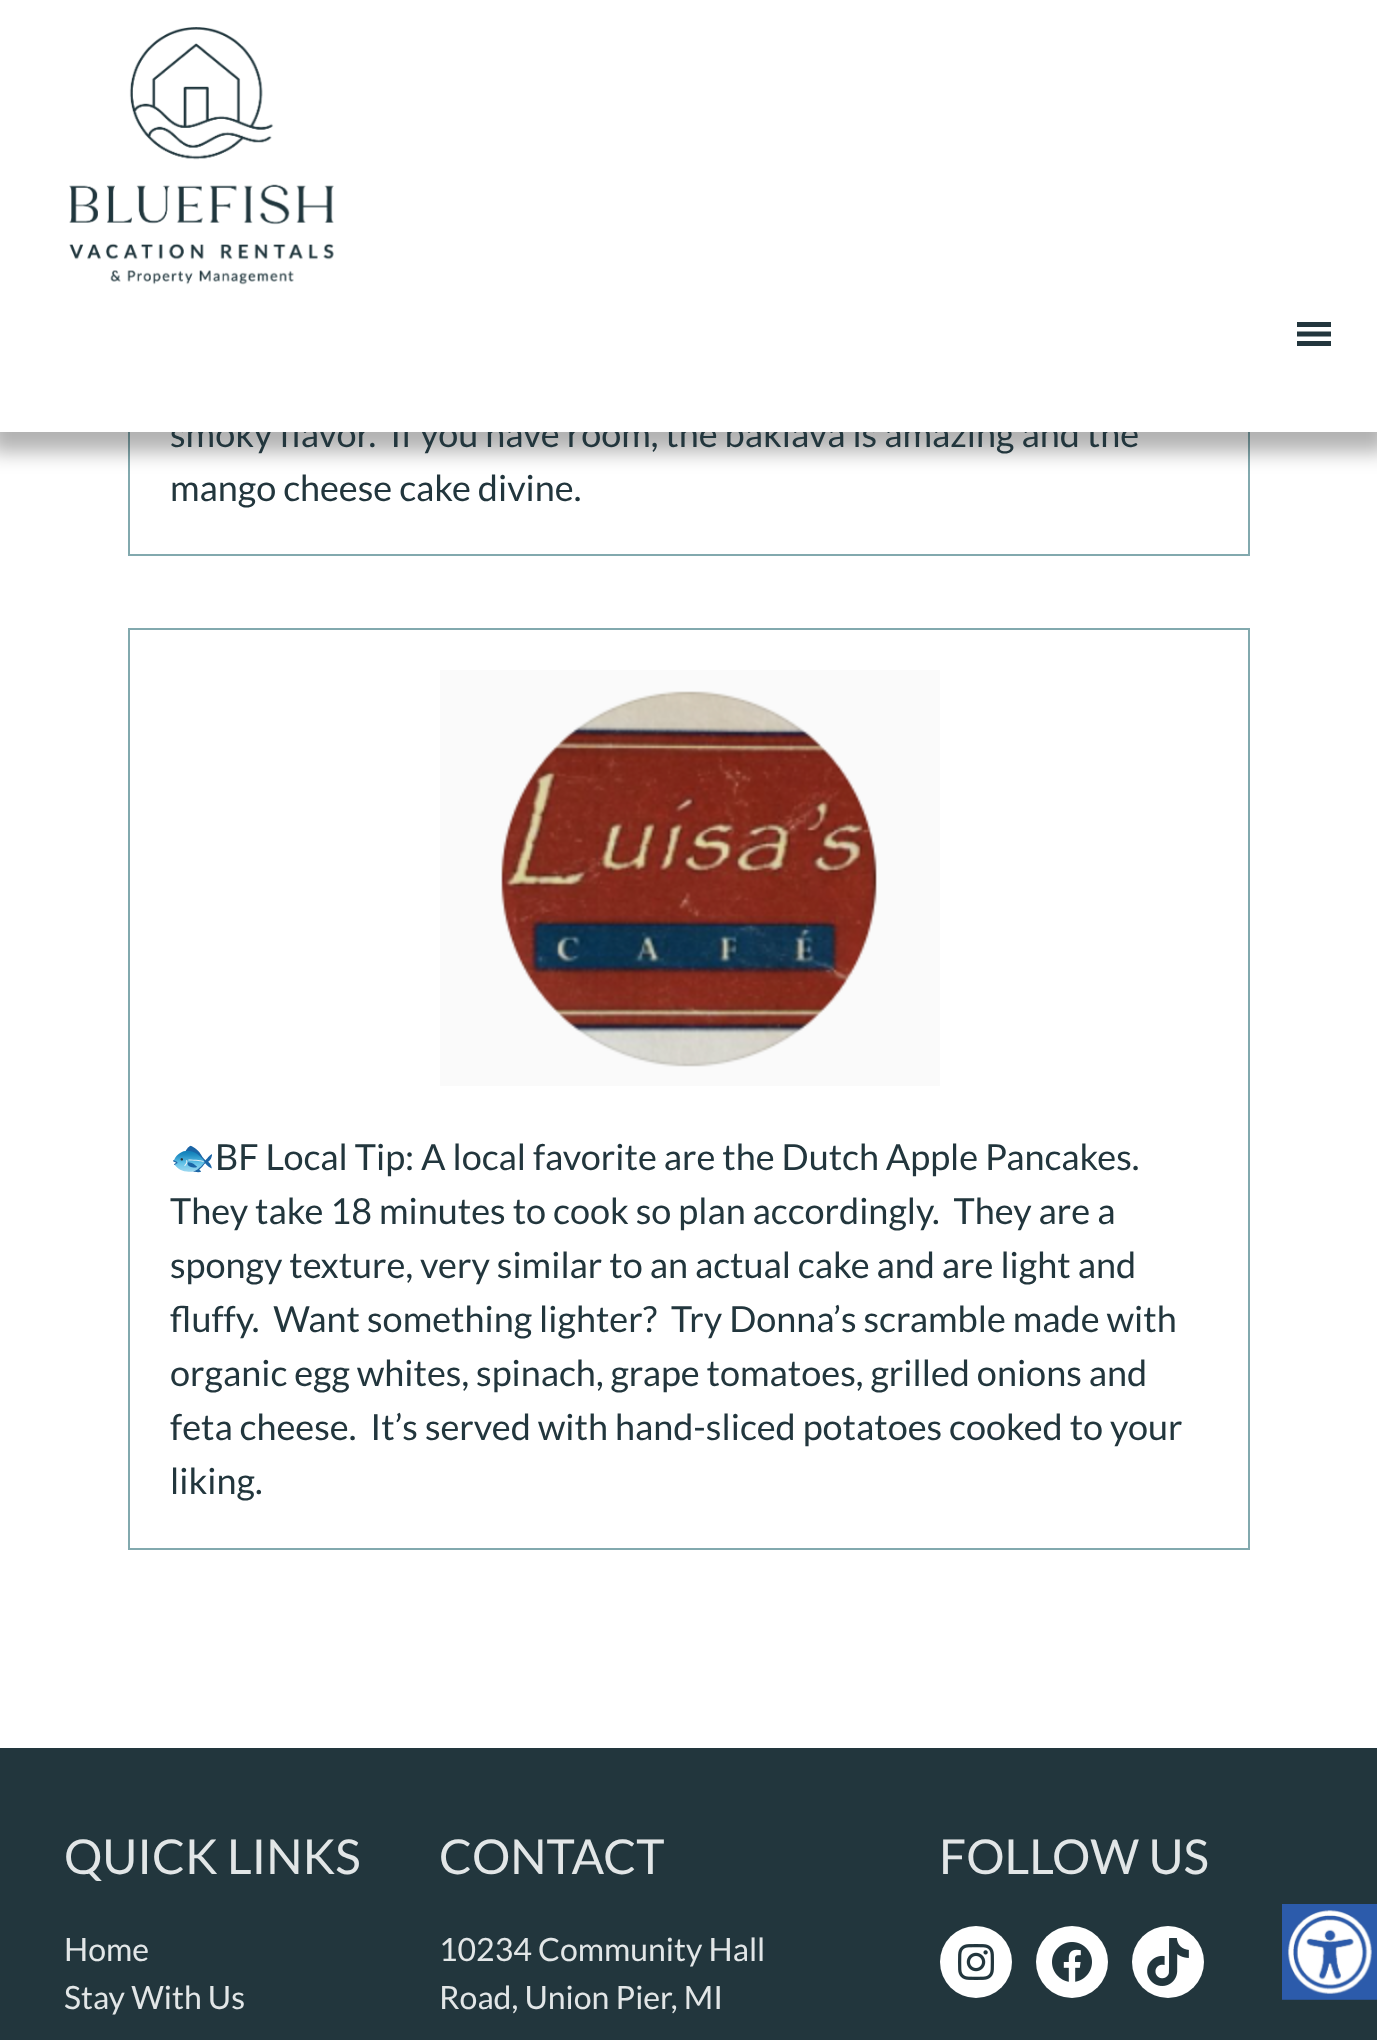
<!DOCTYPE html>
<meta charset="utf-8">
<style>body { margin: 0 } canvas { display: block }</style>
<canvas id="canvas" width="1377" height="2040"></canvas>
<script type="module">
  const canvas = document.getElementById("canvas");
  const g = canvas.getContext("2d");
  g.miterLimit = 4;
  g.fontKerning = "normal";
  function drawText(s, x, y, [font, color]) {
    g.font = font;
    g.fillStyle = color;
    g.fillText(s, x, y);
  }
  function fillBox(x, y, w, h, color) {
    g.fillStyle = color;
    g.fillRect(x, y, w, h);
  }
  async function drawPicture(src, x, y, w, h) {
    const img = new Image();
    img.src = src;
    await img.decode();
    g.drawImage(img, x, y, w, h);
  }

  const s1 = ["36px Lato", "#22363D"];
  const s2 = ["36px Noto Color Emoji", "#22363D"];
  const s3 = ["48px Lato", "#E2E6E7"];
  const s4 = ["32px Lato", "#E2E6E7"];

  fillBox(0, 0, 1377, 2040, "#FFFFFF");
  g.strokeStyle = "#82A9AE";
  g.lineWidth = 2;
  g.strokeRect(129, 69, 1120, 486);
  g.fillStyle = "rgba(0, 0, 0, 0.3)";
  g.filter = "blur(10px)";
  g.beginPath();
  g.rect(-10, 0, 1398, 452);
  g.fill();
  g.filter = "none";
  drawText("smoky flavor.  If you have room, the baklava is amazing and the", 170, 447, s1);
  fillBox(0, 0, 1377, 432, "#FFFFFF");
  await drawPicture("pic1.png", 69, 27, 265, 258);
  g.fillStyle = "#22363D";
  g.beginPath();
  g.moveTo(1297, 346);
  g.lineTo(1331, 346);
  g.lineTo(1331, 341);
  g.lineTo(1297, 341);
  g.closePath();
  g.moveTo(1297, 322);
  g.lineTo(1297, 327);
  g.lineTo(1331, 327);
  g.lineTo(1331, 322);
  g.closePath();
  g.moveTo(1297, 336.5);
  g.lineTo(1331, 336.5);
  g.lineTo(1331, 331.5);
  g.lineTo(1297, 331.5);
  g.closePath();
  g.fill();
  drawText("mango cheese cake divine.", 170, 501, s1);
  g.strokeRect(129, 629, 1120, 920);
  await drawPicture("pic2.png", 440, 670, 500, 416);
  drawText("🐟", 170, 1170, s2);
  drawText("BF Local Tip: A local favorite are the Dutch Apple Pancakes.", 215, 1170, s1);
  drawText("They take 18 minutes to cook so plan accordingly.  They are a", 170, 1224, s1);
  drawText("spongy texture, very similar to an actual cake and are light and", 170, 1278, s1);
  drawText("fluffy.  Want something lighter?  Try Donna’s scramble made with", 170, 1332, s1);
  drawText("organic egg whites, spinach, grape tomatoes, grilled onions and", 170, 1386, s1);
  drawText("feta cheese.  It’s served with hand-sliced potatoes cooked to your", 170, 1440, s1);
  drawText("liking.", 170, 1494, s1);
  fillBox(0, 1748, 1377, 292, "#22363D");
  drawText("QUICK LINKS", 64, 1874, s3);
  drawText("Home", 64, 1961, s4);
  drawText("Stay With Us", 64, 2009, s4);
  drawText("CONTACT", 439, 1874, s3);
  drawText("10234 Community Hall", 439, 1961, s4);
  drawText("Road, Union Pier, MI", 439, 2009, s4);
  drawText("FOLLOW US", 939, 1874, s3);
  g.fillStyle = "#FFFFFF";
  g.beginPath();
  g.arc(976, 1962, 36, 0, Math.PI * 2);
  g.fill();
  await drawPicture("pic3.png", 958, 1944, 36, 36);
  g.beginPath();
  g.arc(1072, 1962, 36, 0, Math.PI * 2);
  g.fill();
  await drawPicture("pic4.png", 1052, 1942, 40, 40);
  g.beginPath();
  g.arc(1168, 1962, 36, 0, Math.PI * 2);
  g.fill();
  await drawPicture("pic5.png", 1147, 1938, 42, 48);
  await drawPicture("pic6.png", 1282, 1904, 95, 96);
</script>
